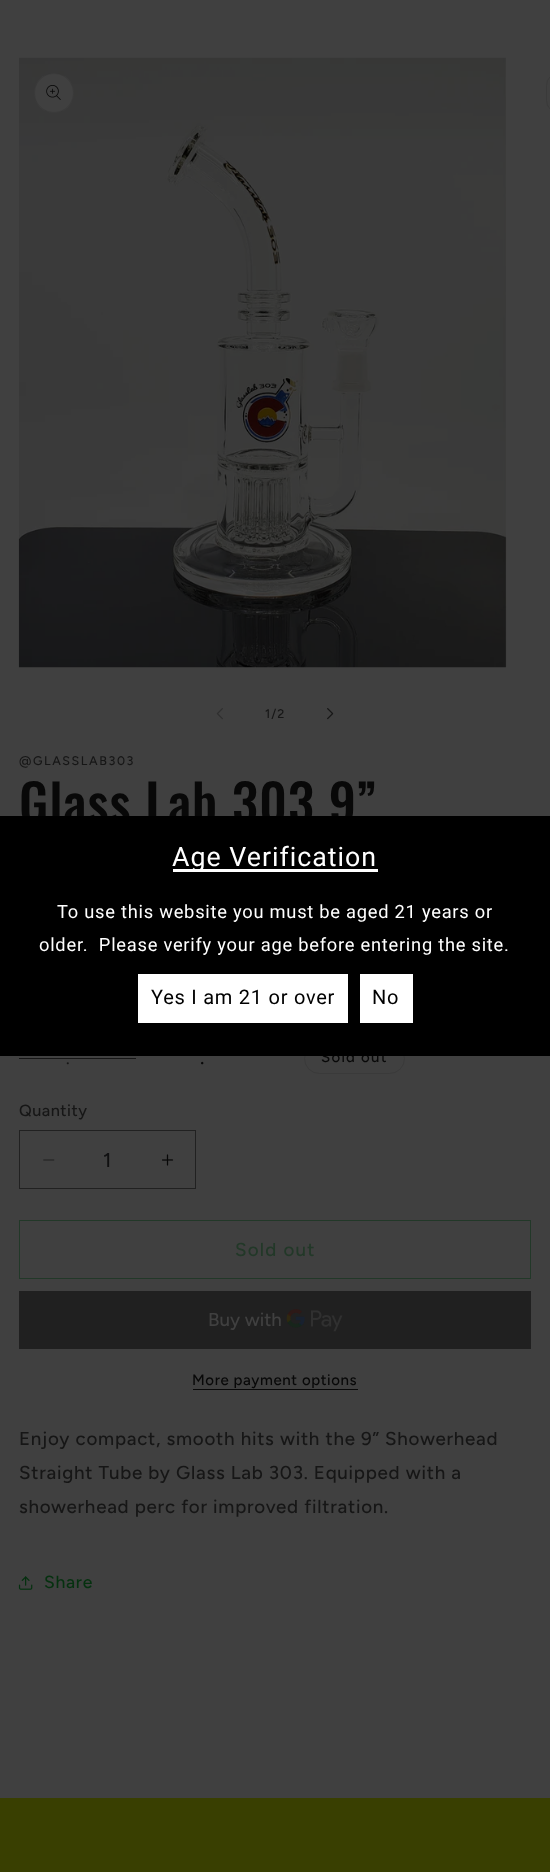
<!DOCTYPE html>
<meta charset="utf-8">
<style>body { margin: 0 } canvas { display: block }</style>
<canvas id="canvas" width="550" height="1872"></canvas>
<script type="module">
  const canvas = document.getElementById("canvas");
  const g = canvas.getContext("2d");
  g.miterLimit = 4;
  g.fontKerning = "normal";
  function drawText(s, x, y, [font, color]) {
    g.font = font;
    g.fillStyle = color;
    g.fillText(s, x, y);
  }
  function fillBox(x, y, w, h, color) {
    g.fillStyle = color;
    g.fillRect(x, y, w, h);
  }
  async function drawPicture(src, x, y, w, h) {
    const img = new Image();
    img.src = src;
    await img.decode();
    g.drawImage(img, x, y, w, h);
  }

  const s1 = ["500 12.5px Figtree", "#161616"];
  const s2 = ["500 52.5px Oswald", "#080808"];
  const s3 = ["500 16.25px Figtree", "#161616"];
  const s4 = ["500 20px Figtree", "#080808"];
  const s5 = ["500 15px Figtree", "#080808"];
  const s6 = ["500 20px Figtree", "#101011"];
  const s7 = ["500 18.75px Figtree", "#223828"];
  const s8 = ["500 18.75px Figtree", "#404040"];
  const s9 = ["500 18.75px Figtree", "#161616"];
  const s10 = ["500 17.5px Figtree", "#05310F"];
  const s11 = ["26.75px Roboto", "#FFFFFF"];
  const s12 = ["18.3px Roboto", "#FFFFFF"];
  const s13 = ["20px Roboto", "#000000"];

  fillBox(0, 0, 550, 1872, "#404040");
  await drawPicture("pic1.png", 18, 57, 489, 611);
  g.beginPath();
  g.arc(54, 93, 20, 0, Math.PI * 2);
  g.fill();
  g.beginPath();
  g.arc(54, 93, 19.5, 0, Math.PI * 2);
  g.strokeStyle = "rgba(8, 8, 8, 0.1)";
  g.stroke();
  await drawPicture("pic2.png", 46, 85, 15, 15);
  g.beginPath();
  g.roundRect(546.5, 73.5, 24, 39, 19.5);
  g.strokeStyle = "#3A3A3A";
  g.stroke();
  await drawPicture("pic3.png", 216, 708, 7, 12);
  g.letterSpacing = "1px";
  drawText("1/2", 265, 718, s1);
  await drawPicture("pic4.png", 327, 708, 7, 12);
  g.letterSpacing = "1.6px";
  drawText("@GLASSLAB303", 19, 765, s1);
  g.letterSpacing = "1px";
  drawText("Glass Lab 303 9”", 19, 824, s2);
  g.letterSpacing = "1.6px";
  drawText(".", 66, 1064, s3);
  fillBox(19, 1058, 117, 1, "rgba(8, 8, 8, 0.75)");
  drawText(".", 200, 1064, s4);
  g.beginPath();
  g.roundRect(304.5, 1043.5, 100, 30, 15);
  g.stroke();
  g.letterSpacing = "1.25px";
  drawText("Sold out", 321, 1062, s5);
  g.letterSpacing = "0.5px";
  drawText("Quantity", 19, 1116, s3);
  await drawPicture("pic5.png", 43, 1159, 12, 2);
  await drawPicture("pic6.png", 162, 1154, 12, 12);
  g.strokeStyle = "#212121";
  g.strokeRect(19.5, 1130.5, 176, 58);
  g.letterSpacing = "0px";
  drawText("1", 103, 1167, s6);
  g.strokeStyle = "#223828";
  g.strokeRect(19.5, 1220.5, 511, 58);
  g.letterSpacing = "1.25px";
  drawText("Sold out", 235, 1256, s7);
  fillBox(19, 1291, 512, 58, "#202020");
  g.letterSpacing = "0px";
  drawText("Buy with", 208, 1326, s8);
  await drawPicture("pic7.png", 286, 1309, 57, 23);
  g.letterSpacing = "0.6px";
  drawText("More payment options", 192, 1385, s5);
  fillBox(193, 1389, 165, 1, "#080808");
  g.letterSpacing = "0.75px";
  drawText("Enjoy compact, smooth hits with the 9” Showerhead", 19, 1445, s9);
  drawText("Straight Tube by Glass Lab 303. Equipped with a", 19, 1479, s9);
  drawText("showerhead perc for improved filtration.", 19, 1513, s9);
  await drawPicture("pic8.png", 18, 1576, 15, 14);
  drawText("Share", 44, 1588, s10);
  fillBox(0, 1798, 550, 74, "#393F01");
  fillBox(0, 816, 550, 240, "#000000");
  fillBox(173, 869, 205, 3, "#FFFFFF");
  g.letterSpacing = "1px";
  drawText("Age Verification", 172, 866, s11);
  g.letterSpacing = "0.75px";
  drawText("To use this website you must be aged 21 years or", 57, 918, s12);
  drawText("older.  Please verify your age before entering the site.", 39, 951, s12);
  fillBox(138, 974, 210, 49, "#FFFFFF");
  drawText("Yes I am 21 or over", 151, 1004, s13);
  fillBox(360, 974, 53, 49, "#FFFFFF");
  drawText("No", 372, 1004, s13);
</script>
